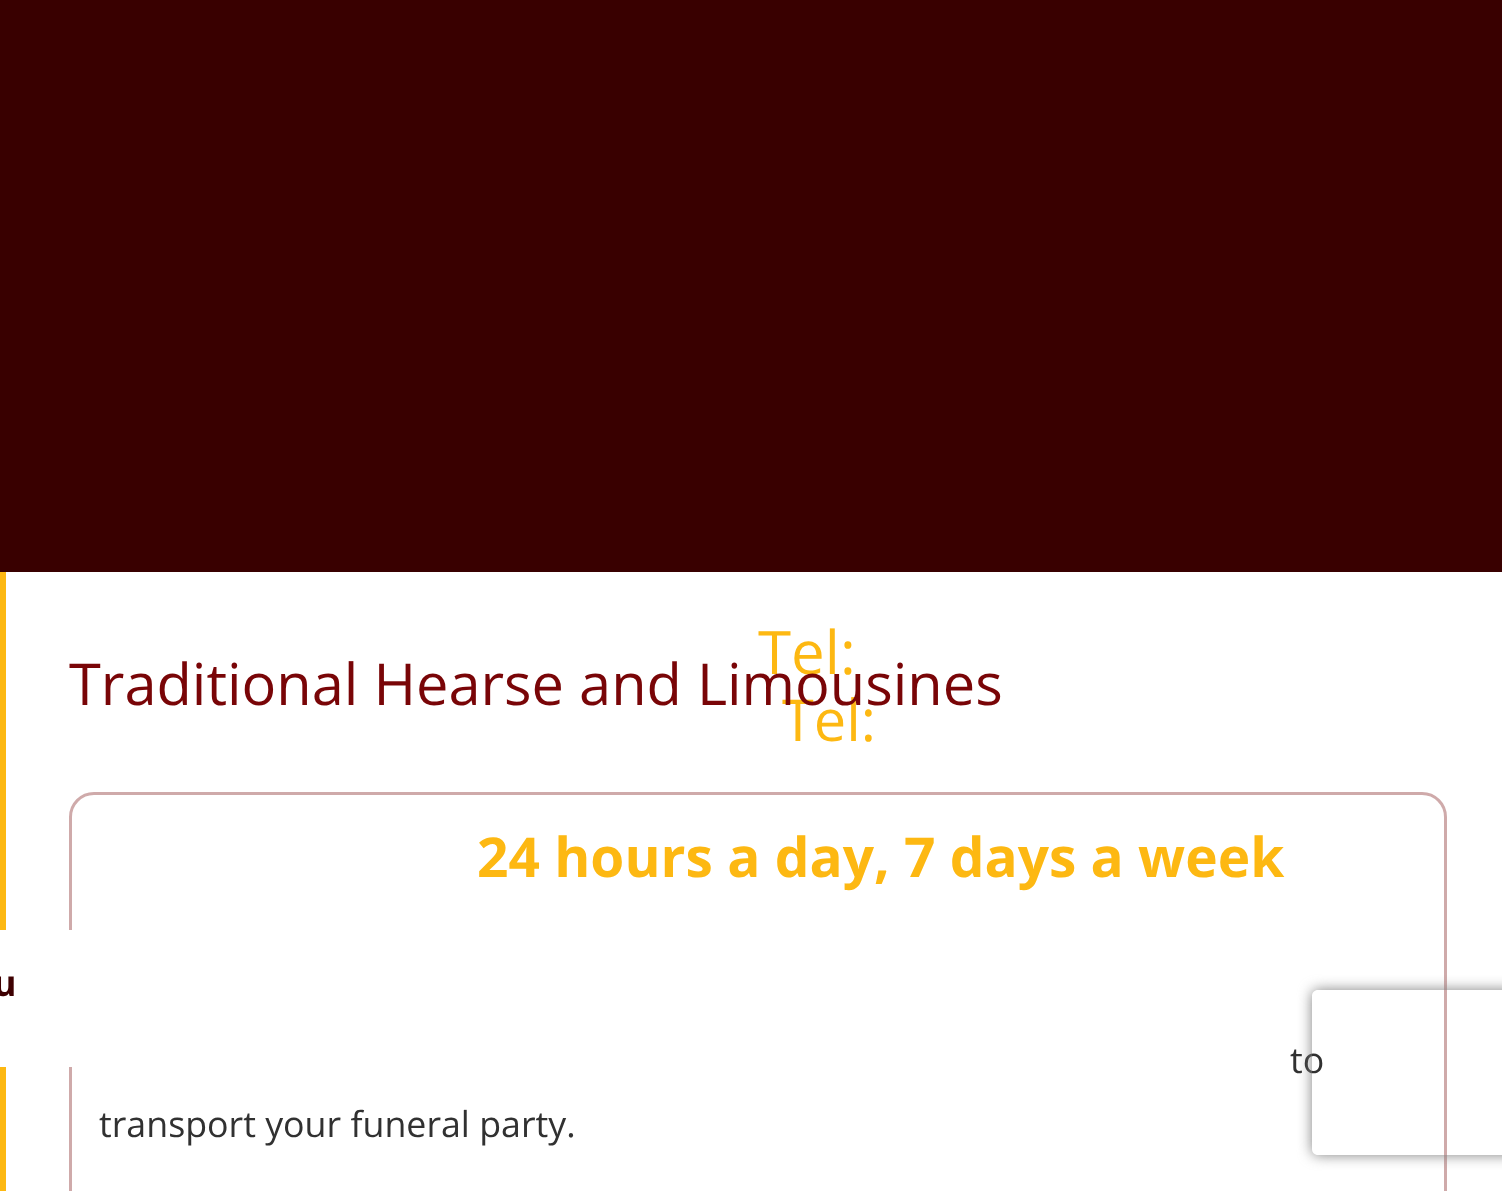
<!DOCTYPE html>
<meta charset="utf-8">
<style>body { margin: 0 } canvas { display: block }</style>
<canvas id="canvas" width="1502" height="1191"></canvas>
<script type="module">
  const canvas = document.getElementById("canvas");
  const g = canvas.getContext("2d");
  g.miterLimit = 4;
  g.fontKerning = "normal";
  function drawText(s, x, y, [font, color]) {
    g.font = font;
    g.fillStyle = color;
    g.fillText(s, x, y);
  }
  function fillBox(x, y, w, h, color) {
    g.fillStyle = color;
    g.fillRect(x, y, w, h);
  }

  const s1 = ["60px Open Sans", "#FDB812"];
  const s2 = ["57.75px Open Sans", "#FDB812"];
  const s3 = ["bold 55px Open Sans", "#FDB812"];
  const s4 = ["bold 35.75px Open Sans", "#3E0001"];
  const s5 = ["57.75px Open Sans", "#790507"];
  const s6 = ["35.75px Open Sans", "#313131"];

  fillBox(0, 0, 1502, 1191, "#390000");
  fillBox(6, 572, 1496, 619, "#FFFFFF");
  drawText("Tel:", 758, 674, s1);
  drawText("Tel:", 782, 741, s2);
  g.beginPath();
  g.roundRect(70.5, 793.5, 1375, 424, 23.5);
  g.strokeStyle = "#CFAAAA";
  g.lineWidth = 3;
  g.stroke();
  drawText("24 hours a day, 7 days a week", 477, 877, s3);
  fillBox(0, 572, 6, 619, "#FDB812");
  fillBox(0, 930, 72, 137, "#FFFFFF");
  drawText("u", -7, 996, s4);
  drawText("Traditional Hearse and Limousines", 69, 705, s5);
  drawText("to", 1290, 1073, s6);
  drawText("transport your funeral party.", 99, 1137, s6);
  g.save();
  g.beginPath();
  g.moveTo(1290, 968);
  g.lineTo(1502, 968);
  g.lineTo(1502, 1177);
  g.lineTo(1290, 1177);
  g.closePath();
  g.moveTo(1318, 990);
  g.lineTo(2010, 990);
  g.bezierCurveTo(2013.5, 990, 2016, 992.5, 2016, 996);
  g.lineTo(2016, 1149);
  g.bezierCurveTo(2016, 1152.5, 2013.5, 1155, 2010, 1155);
  g.lineTo(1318, 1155);
  g.bezierCurveTo(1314.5, 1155, 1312, 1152.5, 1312, 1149);
  g.lineTo(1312, 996);
  g.bezierCurveTo(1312, 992.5, 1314.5, 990, 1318, 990);
  g.closePath();
  g.clip("evenodd");
  g.fillStyle = "#808080";
  g.filter = "blur(7px)";
  g.beginPath();
  g.roundRect(1312, 990, 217, 165, 6);
  g.fill();
  g.filter = "none";
  g.restore();
</script>
